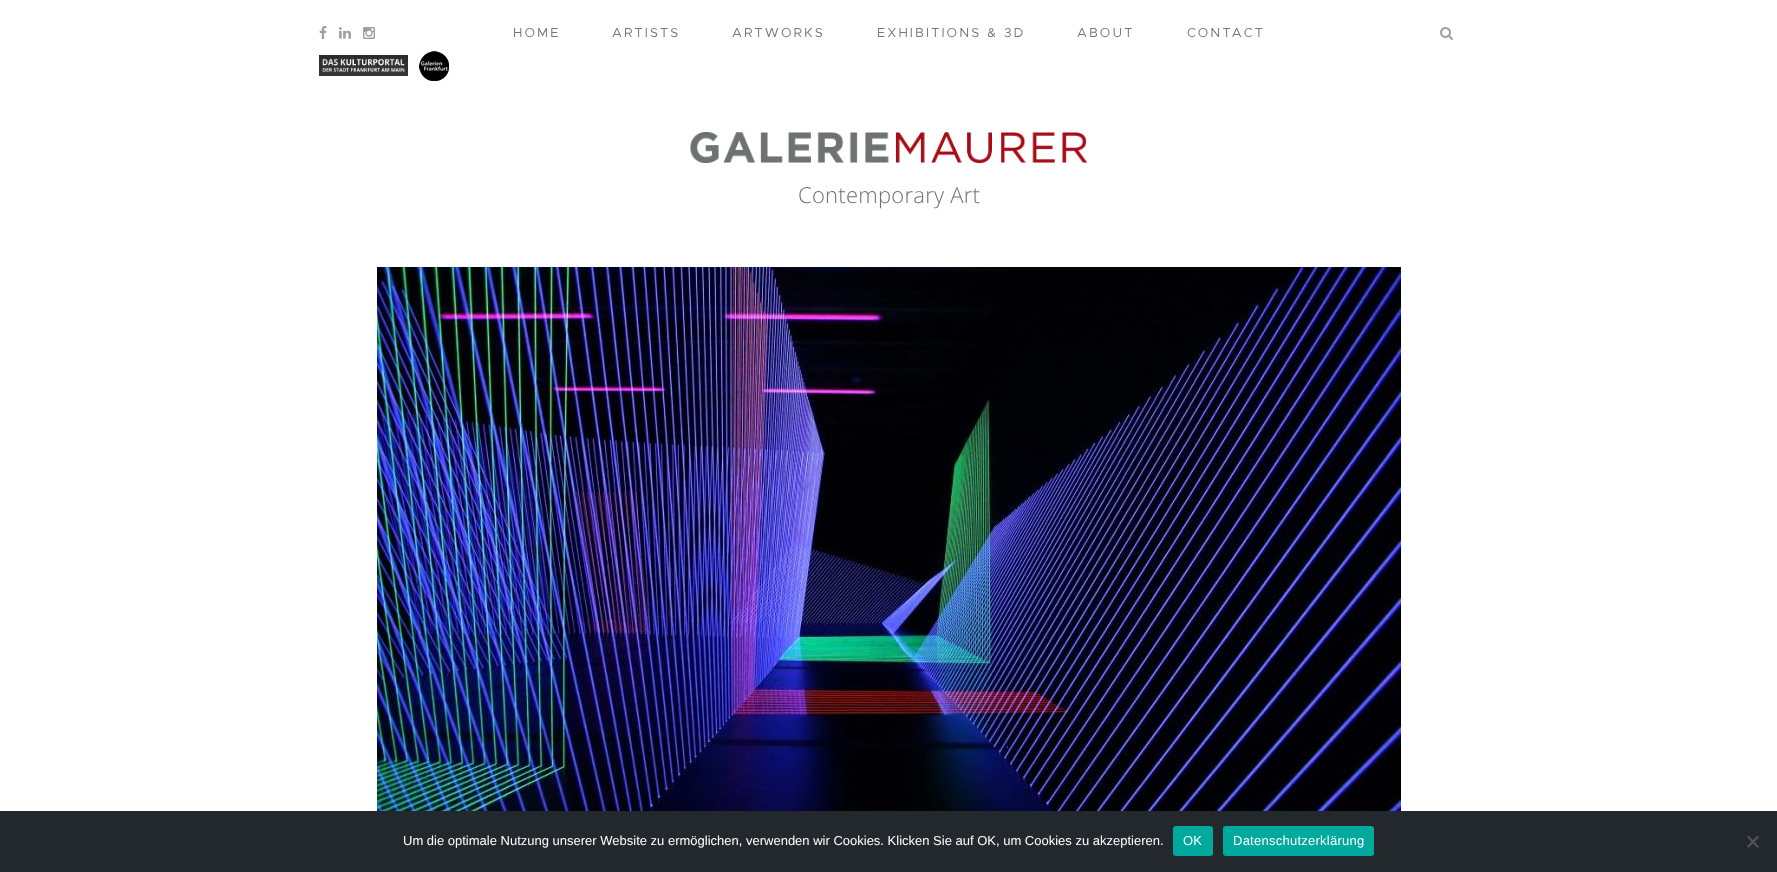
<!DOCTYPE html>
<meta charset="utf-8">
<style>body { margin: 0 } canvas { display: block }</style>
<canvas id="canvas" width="1777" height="872"></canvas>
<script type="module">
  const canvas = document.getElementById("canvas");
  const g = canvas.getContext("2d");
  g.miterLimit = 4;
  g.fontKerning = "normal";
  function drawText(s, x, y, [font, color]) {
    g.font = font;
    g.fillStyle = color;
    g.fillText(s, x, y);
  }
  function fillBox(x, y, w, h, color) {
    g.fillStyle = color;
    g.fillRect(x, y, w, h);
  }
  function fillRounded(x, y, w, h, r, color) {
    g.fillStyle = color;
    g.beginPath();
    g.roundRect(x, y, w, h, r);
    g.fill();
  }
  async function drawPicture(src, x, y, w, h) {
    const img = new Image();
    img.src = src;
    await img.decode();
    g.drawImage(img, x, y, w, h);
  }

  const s1 = ["13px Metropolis", "#787878"];
  const s2 = ["300 22px Open Sans", "#707173"];
  const s3 = ["13px Liberation Sans", "#FFFFFF"];

  fillBox(0, 0, 1777, 872, "#FFFFFF");
  await drawPicture("pic1.png", 319, 26, 8, 13);
  await drawPicture("pic2.png", 339, 27, 12, 12);
  await drawPicture("pic3.png", 363, 27, 12, 12);
  g.letterSpacing = "2.1px";
  drawText("HOME", 513, 37, s1);
  drawText("ARTISTS", 612, 37, s1);
  drawText("ARTWORKS", 732, 37, s1);
  drawText("EXHIBITIONS & 3D", 877, 37, s1);
  drawText("ABOUT", 1077, 37, s1);
  drawText("CONTACT", 1187, 37, s1);
  await drawPicture("pic4.png", 1440, 27, 13, 13);
  await drawPicture("pic5.png", 319, 55, 89, 21);
  await drawPicture("pic6.png", 419, 51, 30, 30);
  await drawPicture("pic7.png", 690, 132, 398, 31);
  g.letterSpacing = "0.25px";
  drawText("Contemporary Art", 798, 203, s2);
  await drawPicture("pic8.png", 377, 267, 1024, 544);
  fillBox(0, 811, 1777, 61, "#23282D");
  g.letterSpacing = "0px";
  drawText("Um die optimale Nutzung unserer Website zu ermöglichen, verwenden wir Cookies. Klicken Sie auf OK, um Cookies zu akzeptieren.", 403, 845, s3);
  fillRounded(1173, 826, 40, 30, 3, "#00A99D");
  g.letterSpacing = "0.25px";
  drawText("OK", 1183, 845, s3);
  fillRounded(1223, 826, 151, 30, 3, "#00A99D");
  drawText("Datenschutzerklärung", 1233, 845, s3);
  g.fillStyle = "#525457";
  g.beginPath();
  g.moveTo(1757.5, 835.5);
  g.lineTo(1759, 837);
  g.lineTo(1748.5, 848);
  g.lineTo(1747, 846.5);
  g.closePath();
  g.fill();
  g.beginPath();
  g.moveTo(1747, 837);
  g.lineTo(1748.5, 835.5);
  g.lineTo(1759, 846.5);
  g.lineTo(1757.5, 848);
  g.closePath();
  g.fill();
</script>
